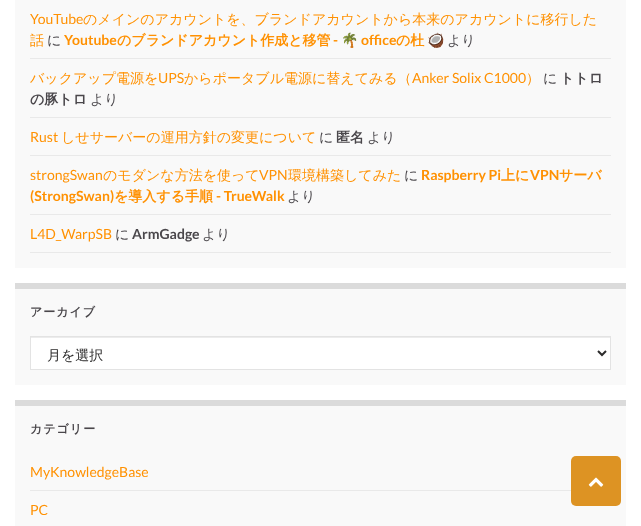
<!DOCTYPE html>
<meta charset="utf-8">
<style>body { margin: 0 } canvas { display: block }</style>
<canvas id="canvas" width="641" height="526"></canvas>
<script type="module">
  const canvas = document.getElementById("canvas");
  const g = canvas.getContext("2d");
  g.miterLimit = 4;
  g.fontKerning = "normal";
  function drawText(s, x, y, [font, color]) {
    g.font = font;
    g.fillStyle = color;
    g.fillText(s, x, y);
  }
  function fillBox(x, y, w, h, color) {
    g.fillStyle = color;
    g.fillRect(x, y, w, h);
  }
  function fillRounded(x, y, w, h, r, color) {
    g.fillStyle = color;
    g.beginPath();
    g.roundRect(x, y, w, h, r);
    g.fill();
  }
  async function drawPicture(src, x, y, w, h) {
    const img = new Image();
    img.src = src;
    await img.decode();
    g.drawImage(img, x, y, w, h);
  }

  const s1 = ["14px Lato", "#FF9102"];
  const s2 = ["500 14px WenQuanYi Zen Hei", "#FF9102"];
  const s3 = ["500 14px WenQuanYi Zen Hei", "#4A474B"];
  const s4 = ["bold 14px Lato", "#FF9102"];
  const s5 = ["bold 14px WenQuanYi Zen Hei", "#FF9102"];
  const s6 = ["bold 14px Noto Color Emoji", "#FF9102"];
  const s7 = ["bold 14px WenQuanYi Zen Hei", "#4A474B"];
  const s8 = ["bold 14px Lato", "#4A474B"];
  const s9 = ["bold 12px WenQuanYi Zen Hei", "#4A474B"];
  const s10 = ["500 14px WenQuanYi Zen Hei", "#2C2B2B"];

  fillBox(0, 0, 641, 526, "#FFFFFF");
  fillBox(15, 0, 611, 268, "#F9F9F9");
  fillBox(30, 58, 581, 1, "#E9E9E9");
  drawText("YouTube", 30, 24, s1);
  drawText("のメインのアカウントを、ブランドアカウントから本来のアカウントに移行した", 83, 24, s2);
  drawText("話", 30, 45, s2);
  drawText("に", 47, 45, s3);
  drawText("Youtube", 64, 45, s4);
  drawText("のブランドアカウント作成と移管", 117, 45, s5);
  drawText("-", 333, 45, s4);
  drawText("🌴", 341, 45, s6);
  drawText("office", 361, 45, s4);
  drawText("の杜", 396, 45, s5);
  drawText("🥥", 427, 45, s6);
  drawText("より", 447, 45, s3);
  fillBox(30, 117, 581, 1, "#E9E9E9");
  drawText("バックアップ電源を", 30, 83, s2);
  drawText("UPS", 158, 83, s1);
  drawText("からポータブル電源に替えてみる（", 184, 83, s2);
  drawText("Anker Solix C1000", 412, 83, s1);
  drawText("）", 526, 83, s2);
  drawText("に", 543, 83, s3);
  drawText("トトロ", 560, 83, s7);
  drawText("の豚トロ", 30, 104, s7);
  drawText("より", 90, 104, s3);
  fillBox(30, 155, 581, 1, "#E9E9E9");
  drawText("Rust", 30, 142, s1);
  drawText("しせサーバーの運用方針の変更について", 61, 142, s2);
  drawText("に", 319, 142, s3);
  drawText("匿名", 336, 142, s7);
  drawText("より", 367, 142, s3);
  fillBox(30, 214, 581, 1, "#E9E9E9");
  drawText("strongSwan", 30, 180, s1);
  drawText("のモダンな方法を使って", 103, 180, s2);
  drawText("VPN", 259, 180, s1);
  drawText("環境構築してみた", 288, 180, s2);
  drawText("に", 404, 180, s3);
  drawText("Raspberry Pi", 421, 180, s4);
  drawText("上に", 501, 180, s5);
  drawText("VPN", 530, 180, s4);
  drawText("サーバ", 559, 180, s5);
  drawText("(StrongSwan)", 30, 201, s4);
  drawText("を導入する手順", 114, 201, s5);
  drawText("- TrueWalk", 216, 201, s4);
  drawText("より", 287, 201, s3);
  fillBox(30, 252, 581, 1, "#E9E9E9");
  drawText("L4D_WarpSB", 30, 239, s1);
  drawText("に", 115, 239, s3);
  drawText("ArmGadge", 132, 239, s8);
  drawText("より", 202, 239, s3);
  fillBox(15, 289, 611, 96, "#F9F9F9");
  fillBox(15, 283, 611, 6, "#DBDBDB");
  g.letterSpacing = "1px";
  drawText("アーカイブ", 30, 316, s9);
  fillBox(31, 338, 579, 31, "#FFFFFF");
  fillBox(31, 337, 579, 1, "#ECECEC");
  g.strokeStyle = "#E3E3E3";
  g.strokeRect(30.5, 336.5, 580, 33);
  g.beginPath();
  g.moveTo(598, 351);
  g.lineTo(602, 355);
  g.lineTo(606, 351);
  g.strokeStyle = "#2C2B2B";
  g.lineWidth = 2;
  g.stroke();
  g.letterSpacing = "0px";
  drawText("月を選択", 47, 360, s10);
  fillBox(15, 406, 611, 120, "#F9F9F9");
  fillBox(15, 400, 611, 6, "#DBDBDB");
  g.letterSpacing = "1px";
  drawText("カテゴリー", 30, 433, s9);
  fillBox(30, 490, 541, 1, "#E9E9E9");
  g.letterSpacing = "0px";
  drawText("MyKnowledgeBase", 30, 477, s1);
  drawText("PC", 30, 515, s1);
  fillRounded(571, 456, 50, 50, 5, "#DD9323");
  await drawPicture("pic1.png", 588, 477, 16, 10);
</script>
